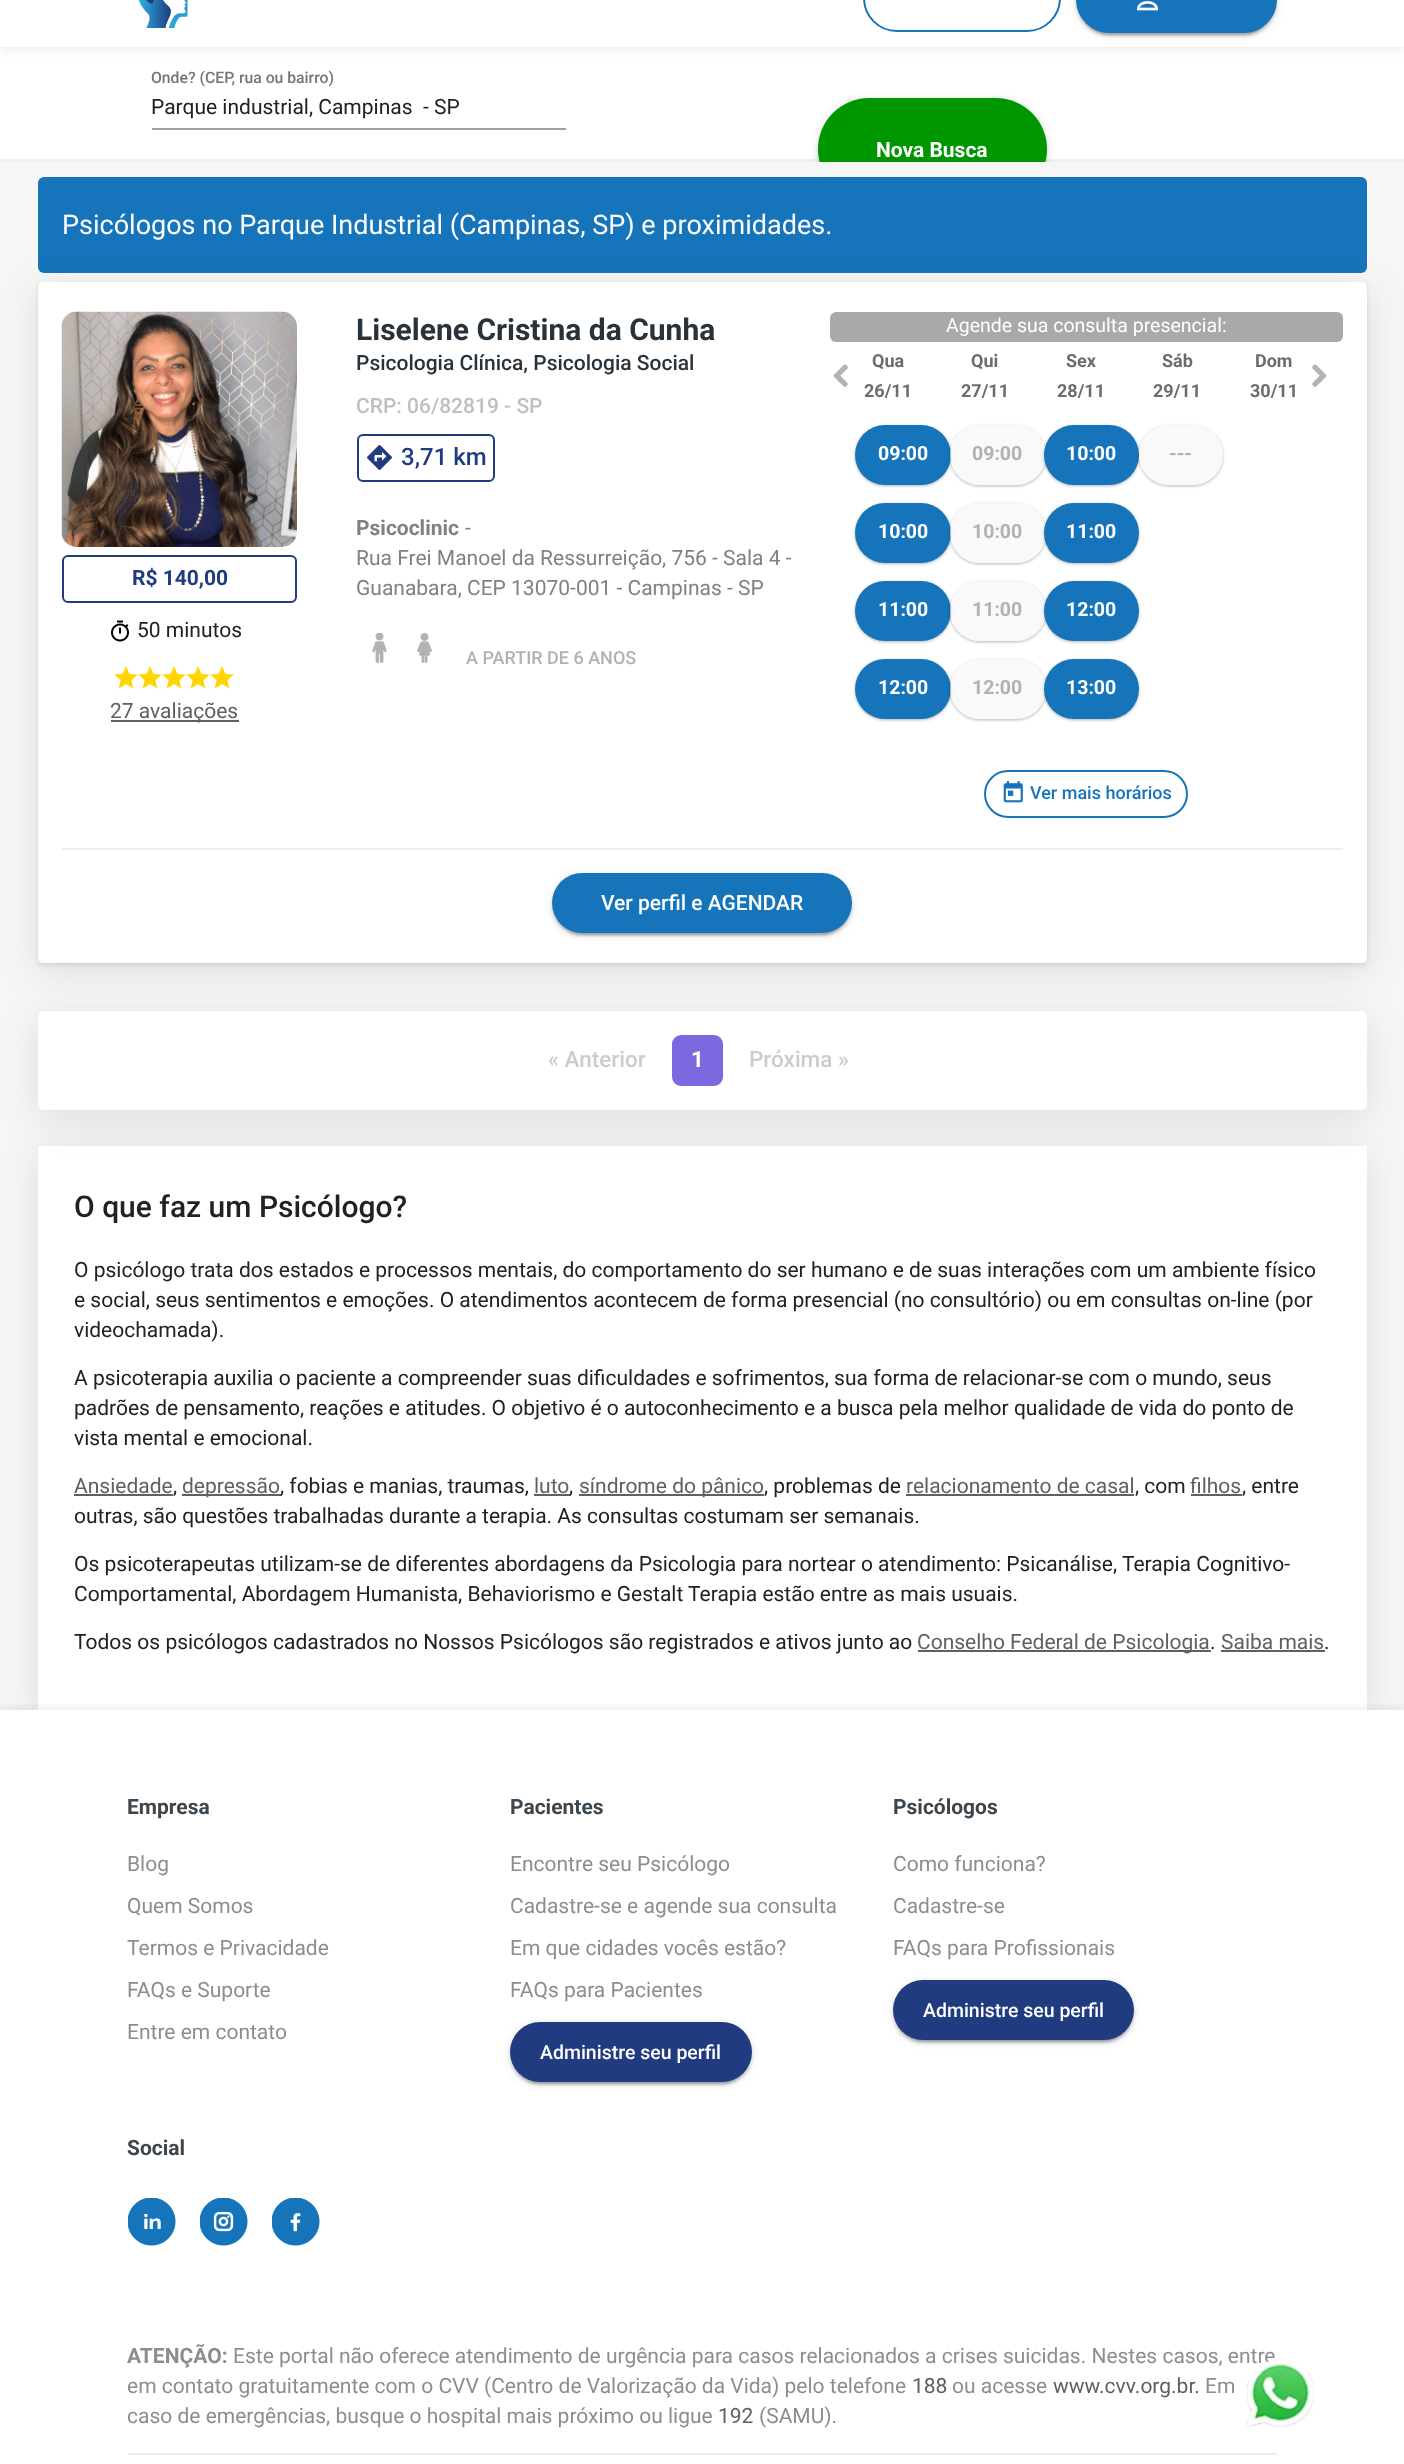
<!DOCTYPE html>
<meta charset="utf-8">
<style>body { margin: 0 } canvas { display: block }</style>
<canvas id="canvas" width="1404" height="2464"></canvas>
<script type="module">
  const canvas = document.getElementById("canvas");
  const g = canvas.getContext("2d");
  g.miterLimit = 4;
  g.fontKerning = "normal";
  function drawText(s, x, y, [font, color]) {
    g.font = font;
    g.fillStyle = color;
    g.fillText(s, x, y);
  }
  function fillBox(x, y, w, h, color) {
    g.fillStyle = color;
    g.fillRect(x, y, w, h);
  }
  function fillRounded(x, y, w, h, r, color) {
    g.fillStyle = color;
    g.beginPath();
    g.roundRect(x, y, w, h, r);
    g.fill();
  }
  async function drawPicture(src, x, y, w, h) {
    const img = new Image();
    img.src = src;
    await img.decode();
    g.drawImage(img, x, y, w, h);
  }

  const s1 = ["500 15.75px Roboto", "#757575"];
  const s2 = ["21px Roboto", "#212121"];
  const s3 = ["bold 21px Roboto", "#FFFFFF"];
  const s4 = ["27px Roboto", "#FFFFFF"];
  const s5 = ["bold 21px Roboto", "#213B81"];
  const s6 = ["21px Roboto", "#5D6163"];
  const s7 = ["bold 30px Roboto", "#28323A"];
  const s8 = ["500 21px Roboto", "#28323A"];
  const s9 = ["500 21px Roboto", "#BFBFBF"];
  const s10 = ["500 24px Roboto", "#213B81"];
  const s11 = ["bold 21px Roboto", "#818181"];
  const s12 = ["21px Roboto", "#818181"];
  const s13 = ["500 18px Roboto", "#B1B1B1"];
  const s14 = ["19.5px Roboto", "#FFFFFF"];
  const s15 = ["bold 18px Roboto", "#6C6C6C"];
  const s16 = ["bold 19.5px Roboto", "#FFFFFF"];
  const s17 = ["bold 19.5px Roboto", "#B1B1B1"];
  const s18 = ["500 18px Roboto", "#1674BA"];
  const s19 = ["500 21px Roboto", "#FFFFFF"];
  const s20 = ["500 22.5px Roboto", "#CCCCCC"];
  const s21 = ["bold 22.5px Roboto", "#FFFFFF"];
  const s22 = ["500 30px Roboto", "#212121"];
  const s23 = ["bold 21px Roboto", "#3D464D"];
  const s24 = ["21px Roboto", "#8D8D8D"];
  const s25 = ["500 19.5px Roboto", "#FFFFFF"];
  const s26 = ["bold 21px Roboto", "#8D8D8D"];

  fillBox(0, 0, 1404, 2464, "#FFFFFF");
  g.save();
  g.beginPath();
  g.moveTo(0, 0);
  g.lineTo(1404, 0);
  g.lineTo(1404, 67);
  g.lineTo(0, 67);
  g.closePath();
  g.moveTo(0, -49);
  g.lineTo(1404, -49);
  g.lineTo(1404, 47);
  g.lineTo(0, 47);
  g.closePath();
  g.clip("evenodd");
  g.fillStyle = "rgba(0, 0, 0, 0.1)";
  g.filter = "blur(6px)";
  g.beginPath();
  g.rect(0, -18, 1404, 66);
  g.fill();
  g.filter = "none";
  g.restore();
  fillBox(116, 46, 1173, 1, "#FFFFFF");
  await drawPicture("pic1.png", 138, 0, 50, 28);
  g.beginPath();
  g.roundRect(864, -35, 196, 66, 33);
  g.strokeStyle = "#1674BA";
  g.lineWidth = 2;
  g.stroke();
  g.fillStyle = "rgba(0, 0, 0, 0.12)";
  g.filter = "blur(4px)";
  g.beginPath();
  g.roundRect(1076, -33, 201, 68, 34);
  g.fill();
  g.filter = "none";
  g.fillStyle = "rgba(0, 0, 0, 0.14)";
  g.filter = "blur(1.5px)";
  g.beginPath();
  g.roundRect(1076, -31, 201, 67, 33.5);
  g.fill();
  g.filter = "none";
  g.fillStyle = "rgba(0, 0, 0, 0.2)";
  g.filter = "blur(1px)";
  g.beginPath();
  g.roundRect(1079, -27, 195, 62, 31);
  g.fill();
  g.filter = "none";
  g.fillStyle = "#1674BA";
  g.beginPath();
  g.roundRect(1077, -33, 199, 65, 32.5);
  g.fill();
  g.stroke();
  await drawPicture("pic2.png", 1137, 1, 21, 10);
  fillBox(0, 159, 1404, 3, "#EFEFEF");
  drawText("Onde? (CEP, rua ou bairro)", 151, 83, s1);
  drawText("Parque industrial, Campinas  - SP", 151, 114, s2);
  fillBox(152, 128, 414, 2, "#9E9E9E");
  g.fillStyle = "rgba(0, 0, 0, 0.12)";
  g.filter = "blur(4px)";
  g.beginPath();
  g.roundRect(818, 99, 229, 102, 51);
  g.fill();
  g.filter = "none";
  g.fillStyle = "rgba(0, 0, 0, 0.14)";
  g.filter = "blur(1.5px)";
  g.beginPath();
  g.roundRect(818, 101, 229, 102, 51);
  g.fill();
  g.filter = "none";
  fillRounded(818, 98, 229, 102, 51, "#009600");
  drawText("Nova Busca", 876, 157, s3);
  fillBox(0, 162, 1404, 1548, "#F6F6F6");
  fillRounded(38, 177, 1329, 96, 6, "#1674BA");
  drawText("Psicólogos no Parque Industrial (Campinas, SP) e proximidades.", 62, 234, s4);
  g.fillStyle = "rgba(0, 0, 0, 0.1)";
  g.filter = "blur(19px)";
  g.beginPath();
  g.roundRect(38, 290, 1329, 681, 6);
  g.fill();
  g.filter = "none";
  fillRounded(38, 282, 1329, 681, 6, "#FFFFFF");
  g.save();
  g.beginPath();
  g.moveTo(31, 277);
  g.lineTo(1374, 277);
  g.lineTo(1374, 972);
  g.lineTo(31, 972);
  g.closePath();
  g.moveTo(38, 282);
  g.lineTo(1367, 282);
  g.lineTo(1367, 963);
  g.lineTo(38, 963);
  g.closePath();
  g.clip("evenodd");
  g.fillStyle = "rgba(0, 0, 0, 0.1)";
  g.filter = "blur(2px)";
  g.beginPath();
  g.rect(38, 284, 1329, 681);
  g.fill();
  g.filter = "none";
  g.restore();
  await drawPicture("pic3.png", 61, 311, 236, 236);
  g.beginPath();
  g.roundRect(63, 556, 233, 46, 5);
  g.strokeStyle = "#213B81";
  g.stroke();
  drawText("R$ 140,00", 132, 585, s5);
  await drawPicture("pic4.png", 111, 620, 18, 22);
  drawText("50 minutos", 137, 637, s2);
  await drawPicture("pic5.png", 114, 666, 24, 23);
  await drawPicture("pic5.png", 138, 666, 24, 23);
  await drawPicture("pic5.png", 162, 666, 24, 23);
  await drawPicture("pic5.png", 186, 666, 24, 23);
  await drawPicture("pic5.png", 210, 666, 24, 23);
  fillBox(111, 720, 128, 2, "#5D6163");
  drawText("27 avaliações", 110, 718, s6);
  drawText("Liselene Cristina da Cunha", 356, 340, s7);
  drawText("Psicologia Clínica, Psicologia Social", 356, 370, s8);
  drawText("CRP: 06/82819 - SP", 356, 413, s9);
  g.beginPath();
  g.roundRect(358, 435, 136, 46, 5);
  g.stroke();
  await drawPicture("pic6.png", 367, 445, 25, 25);
  drawText("3,71 km", 401, 465, s10);
  drawText("Psicoclinic", 356, 535, s11);
  drawText("-", 465, 535, s12);
  drawText("Rua Frei Manoel da Ressurreição, 756 - Sala 4 -", 356, 565, s12);
  drawText("Guanabara, CEP 13070-001 - Campinas - SP", 356, 595, s12);
  await drawPicture("pic7.png", 372, 633, 15, 30);
  await drawPicture("pic8.png", 417, 633, 15, 30);
  drawText("A PARTIR DE 6 ANOS", 466, 664, s13);
  fillRounded(830, 312, 513, 30, 6, "#A9A9A9");
  drawText("Agende sua consulta presencial:", 946, 332, s14);
  await drawPicture("pic9.png", 833, 364, 15, 23);
  drawText("Qua", 872, 367, s15);
  drawText("26/11", 864, 397, s15);
  drawText("Qui", 971, 367, s15);
  drawText("27/11", 961, 397, s15);
  drawText("Sex", 1066, 367, s15);
  drawText("28/11", 1057, 397, s15);
  drawText("Sáb", 1162, 367, s15);
  drawText("29/11", 1153, 397, s15);
  drawText("Dom", 1255, 367, s15);
  drawText("30/11", 1250, 397, s15);
  await drawPicture("pic10.png", 1312, 364, 15, 23);
  g.fillStyle = "rgba(0, 0, 0, 0.15)";
  g.filter = "blur(1.5px)";
  g.beginPath();
  g.roundRect(855, 426, 96, 60, 30);
  g.fill();
  g.filter = "none";
  g.filter = "blur(1.5px)";
  g.beginPath();
  g.roundRect(855, 426, 96, 60, 30);
  g.fill();
  g.filter = "none";
  fillRounded(855, 425, 96, 60, 30, "#1674BA");
  drawText("09:00", 878, 460, s16);
  g.fillStyle = "rgba(0, 0, 0, 0.15)";
  g.filter = "blur(1.5px)";
  g.beginPath();
  g.roundRect(855, 504, 96, 60, 30);
  g.fill();
  g.filter = "none";
  g.filter = "blur(1.5px)";
  g.beginPath();
  g.roundRect(855, 504, 96, 60, 30);
  g.fill();
  g.filter = "none";
  fillRounded(855, 503, 96, 60, 30, "#1674BA");
  drawText("10:00", 878, 538, s16);
  g.fillStyle = "rgba(0, 0, 0, 0.15)";
  g.filter = "blur(1.5px)";
  g.beginPath();
  g.roundRect(855, 582, 96, 60, 30);
  g.fill();
  g.filter = "none";
  g.filter = "blur(1.5px)";
  g.beginPath();
  g.roundRect(855, 582, 96, 60, 30);
  g.fill();
  g.filter = "none";
  fillRounded(855, 581, 96, 60, 30, "#1674BA");
  drawText("11:00", 878, 616, s16);
  g.fillStyle = "rgba(0, 0, 0, 0.15)";
  g.filter = "blur(1.5px)";
  g.beginPath();
  g.roundRect(855, 660, 96, 60, 30);
  g.fill();
  g.filter = "none";
  g.filter = "blur(1.5px)";
  g.beginPath();
  g.roundRect(855, 660, 96, 60, 30);
  g.fill();
  g.filter = "none";
  fillRounded(855, 659, 96, 60, 30, "#1674BA");
  drawText("12:00", 878, 694, s16);
  g.save();
  g.beginPath();
  g.moveTo(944, 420);
  g.lineTo(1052, 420);
  g.lineTo(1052, 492);
  g.lineTo(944, 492);
  g.closePath();
  g.moveTo(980, 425);
  g.lineTo(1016, 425);
  g.bezierCurveTo(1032.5, 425, 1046, 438.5, 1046, 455);
  g.bezierCurveTo(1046, 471.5, 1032.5, 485, 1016, 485);
  g.lineTo(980, 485);
  g.bezierCurveTo(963.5, 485, 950, 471.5, 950, 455);
  g.bezierCurveTo(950, 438.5, 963.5, 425, 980, 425);
  g.closePath();
  g.clip("evenodd");
  g.fillStyle = "rgba(0, 0, 0, 0.15)";
  g.filter = "blur(1.5px)";
  g.beginPath();
  g.roundRect(950, 426, 96, 60, 30);
  g.fill();
  g.filter = "none";
  g.filter = "blur(1.5px)";
  g.beginPath();
  g.roundRect(950, 426, 96, 60, 30);
  g.fill();
  g.filter = "none";
  g.restore();
  fillRounded(950, 425, 96, 60, 30, "rgba(246, 246, 246, 0.63)");
  drawText("09:00", 972, 460, s17);
  g.save();
  g.beginPath();
  g.moveTo(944, 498);
  g.lineTo(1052, 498);
  g.lineTo(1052, 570);
  g.lineTo(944, 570);
  g.closePath();
  g.moveTo(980, 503);
  g.lineTo(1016, 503);
  g.bezierCurveTo(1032.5, 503, 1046, 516.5, 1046, 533);
  g.bezierCurveTo(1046, 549.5, 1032.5, 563, 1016, 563);
  g.lineTo(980, 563);
  g.bezierCurveTo(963.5, 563, 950, 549.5, 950, 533);
  g.bezierCurveTo(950, 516.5, 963.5, 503, 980, 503);
  g.closePath();
  g.clip("evenodd");
  g.fillStyle = "rgba(0, 0, 0, 0.15)";
  g.filter = "blur(1.5px)";
  g.beginPath();
  g.roundRect(950, 504, 96, 60, 30);
  g.fill();
  g.filter = "none";
  g.filter = "blur(1.5px)";
  g.beginPath();
  g.roundRect(950, 504, 96, 60, 30);
  g.fill();
  g.filter = "none";
  g.restore();
  fillRounded(950, 503, 96, 60, 30, "rgba(246, 246, 246, 0.63)");
  drawText("10:00", 972, 538, s17);
  g.save();
  g.beginPath();
  g.moveTo(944, 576);
  g.lineTo(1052, 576);
  g.lineTo(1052, 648);
  g.lineTo(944, 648);
  g.closePath();
  g.moveTo(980, 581);
  g.lineTo(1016, 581);
  g.bezierCurveTo(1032.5, 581, 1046, 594.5, 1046, 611);
  g.bezierCurveTo(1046, 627.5, 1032.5, 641, 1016, 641);
  g.lineTo(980, 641);
  g.bezierCurveTo(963.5, 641, 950, 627.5, 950, 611);
  g.bezierCurveTo(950, 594.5, 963.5, 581, 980, 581);
  g.closePath();
  g.clip("evenodd");
  g.fillStyle = "rgba(0, 0, 0, 0.15)";
  g.filter = "blur(1.5px)";
  g.beginPath();
  g.roundRect(950, 582, 96, 60, 30);
  g.fill();
  g.filter = "none";
  g.filter = "blur(1.5px)";
  g.beginPath();
  g.roundRect(950, 582, 96, 60, 30);
  g.fill();
  g.filter = "none";
  g.restore();
  fillRounded(950, 581, 96, 60, 30, "rgba(246, 246, 246, 0.63)");
  drawText("11:00", 972, 616, s17);
  g.save();
  g.beginPath();
  g.moveTo(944, 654);
  g.lineTo(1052, 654);
  g.lineTo(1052, 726);
  g.lineTo(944, 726);
  g.closePath();
  g.moveTo(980, 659);
  g.lineTo(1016, 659);
  g.bezierCurveTo(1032.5, 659, 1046, 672.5, 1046, 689);
  g.bezierCurveTo(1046, 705.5, 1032.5, 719, 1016, 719);
  g.lineTo(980, 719);
  g.bezierCurveTo(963.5, 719, 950, 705.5, 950, 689);
  g.bezierCurveTo(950, 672.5, 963.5, 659, 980, 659);
  g.closePath();
  g.clip("evenodd");
  g.fillStyle = "rgba(0, 0, 0, 0.15)";
  g.filter = "blur(1.5px)";
  g.beginPath();
  g.roundRect(950, 660, 96, 60, 30);
  g.fill();
  g.filter = "none";
  g.filter = "blur(1.5px)";
  g.beginPath();
  g.roundRect(950, 660, 96, 60, 30);
  g.fill();
  g.filter = "none";
  g.restore();
  fillRounded(950, 659, 96, 60, 30, "rgba(246, 246, 246, 0.63)");
  drawText("12:00", 972, 694, s17);
  g.fillStyle = "rgba(0, 0, 0, 0.15)";
  g.filter = "blur(1.5px)";
  g.beginPath();
  g.roundRect(1044, 426, 95, 60, 30);
  g.fill();
  g.filter = "none";
  g.filter = "blur(1.5px)";
  g.beginPath();
  g.roundRect(1044, 426, 95, 60, 30);
  g.fill();
  g.filter = "none";
  fillRounded(1044, 425, 95, 60, 30, "#1674BA");
  drawText("10:00", 1066, 460, s16);
  g.fillStyle = "rgba(0, 0, 0, 0.15)";
  g.filter = "blur(1.5px)";
  g.beginPath();
  g.roundRect(1044, 504, 95, 60, 30);
  g.fill();
  g.filter = "none";
  g.filter = "blur(1.5px)";
  g.beginPath();
  g.roundRect(1044, 504, 95, 60, 30);
  g.fill();
  g.filter = "none";
  fillRounded(1044, 503, 95, 60, 30, "#1674BA");
  drawText("11:00", 1066, 538, s16);
  g.fillStyle = "rgba(0, 0, 0, 0.15)";
  g.filter = "blur(1.5px)";
  g.beginPath();
  g.roundRect(1044, 582, 95, 60, 30);
  g.fill();
  g.filter = "none";
  g.filter = "blur(1.5px)";
  g.beginPath();
  g.roundRect(1044, 582, 95, 60, 30);
  g.fill();
  g.filter = "none";
  fillRounded(1044, 581, 95, 60, 30, "#1674BA");
  drawText("12:00", 1066, 616, s16);
  g.fillStyle = "rgba(0, 0, 0, 0.15)";
  g.filter = "blur(1.5px)";
  g.beginPath();
  g.roundRect(1044, 660, 95, 60, 30);
  g.fill();
  g.filter = "none";
  g.filter = "blur(1.5px)";
  g.beginPath();
  g.roundRect(1044, 660, 95, 60, 30);
  g.fill();
  g.filter = "none";
  fillRounded(1044, 659, 95, 60, 30, "#1674BA");
  drawText("13:00", 1066, 694, s16);
  g.save();
  g.beginPath();
  g.moveTo(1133, 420);
  g.lineTo(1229, 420);
  g.lineTo(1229, 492);
  g.lineTo(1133, 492);
  g.closePath();
  g.moveTo(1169, 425);
  g.lineTo(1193, 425);
  g.bezierCurveTo(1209.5, 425, 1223, 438.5, 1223, 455);
  g.bezierCurveTo(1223, 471.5, 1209.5, 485, 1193, 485);
  g.lineTo(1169, 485);
  g.bezierCurveTo(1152.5, 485, 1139, 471.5, 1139, 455);
  g.bezierCurveTo(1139, 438.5, 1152.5, 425, 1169, 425);
  g.closePath();
  g.clip("evenodd");
  g.fillStyle = "rgba(0, 0, 0, 0.15)";
  g.filter = "blur(1.5px)";
  g.beginPath();
  g.roundRect(1139, 426, 84, 60, 30);
  g.fill();
  g.filter = "none";
  g.filter = "blur(1.5px)";
  g.beginPath();
  g.roundRect(1139, 426, 84, 60, 30);
  g.fill();
  g.filter = "none";
  g.restore();
  fillRounded(1139, 425, 84, 60, 30, "rgba(246, 246, 246, 0.63)");
  drawText("---", 1169, 460, s17);
  g.beginPath();
  g.roundRect(985, 771, 202, 46, 23);
  g.strokeStyle = "#1674BA";
  g.stroke();
  await drawPicture("pic11.png", 1003, 781, 20, 22);
  drawText("Ver mais horários", 1030, 799, s18);
  fillBox(62, 848, 1281, 2, "#EDEDED");
  g.fillStyle = "rgba(0, 0, 0, 0.12)";
  g.filter = "blur(4px)";
  g.beginPath();
  g.roundRect(552, 875, 300, 60, 30);
  g.fill();
  g.filter = "none";
  g.fillStyle = "rgba(0, 0, 0, 0.14)";
  g.filter = "blur(1.5px)";
  g.beginPath();
  g.roundRect(552, 876, 300, 60, 30);
  g.fill();
  g.filter = "none";
  g.fillStyle = "rgba(0, 0, 0, 0.2)";
  g.filter = "blur(1px)";
  g.beginPath();
  g.roundRect(555, 881, 294, 54, 27);
  g.fill();
  g.filter = "none";
  fillRounded(552, 873, 300, 60, 30, "#1674BA");
  drawText("Ver perfil e AGENDAR", 601, 910, s19);
  g.save();
  g.beginPath();
  g.rect(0, 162, 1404, 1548);
  g.clip();
  g.fillStyle = "rgba(0, 0, 0, 0.1)";
  g.filter = "blur(19px)";
  g.beginPath();
  g.rect(38, 1154, 1329, 564);
  g.fill();
  g.filter = "none";
  g.restore();
  fillBox(38, 1146, 1329, 564, "#FFFFFF");
  g.fillStyle = "rgba(0, 0, 0, 0.1)";
  g.filter = "blur(19px)";
  g.beginPath();
  g.roundRect(38, 1019, 1329, 99, 6);
  g.fill();
  g.filter = "none";
  fillRounded(38, 1011, 1329, 99, 6, "#FFFFFF");
  drawText("« Anterior", 548, 1067, s20);
  fillRounded(672, 1035, 51, 51, 9, "#7D68E0");
  drawText("1", 691, 1067, s21);
  drawText("Próxima »", 749, 1067, s20);
  drawText("O que faz um Psicólogo?", 74, 1217, s22);
  drawText("O psicólogo trata dos estados e processos mentais, do comportamento do ser humano e de suas interações com um ambiente físico", 74, 1277, s2);
  drawText("e social, seus sentimentos e emoções. O atendimentos acontecem de forma presencial (no consultório) ou em consultas on-line (por", 74, 1307, s2);
  drawText("videochamada).", 74, 1337, s2);
  drawText("A psicoterapia auxilia o paciente a compreender suas dificuldades e sofrimentos, sua forma de relacionar-se com o mundo, seus", 74, 1385, s2);
  drawText("padrões de pensamento, reações e atitudes. O objetivo é o autoconhecimento e a busca pela melhor qualidade de vida do ponto de", 74, 1415, s2);
  drawText("vista mental e emocional.", 74, 1445, s2);
  drawText("Ansiedade", 74, 1493, s6);
  fillBox(74, 1494, 99, 2, "#5D6163");
  drawText(",", 173, 1493, s2);
  fillBox(182, 1494, 99, 2, "#5D6163");
  drawText("depressão", 182, 1493, s6);
  drawText(", fobias e manias, traumas,", 280, 1493, s2);
  drawText("luto", 534, 1493, s6);
  fillBox(534, 1494, 36, 2, "#5D6163");
  drawText(",", 569, 1493, s2);
  fillBox(579, 1494, 185, 2, "#5D6163");
  drawText("síndrome do pânico", 579, 1493, s6);
  drawText(", problemas de", 764, 1493, s2);
  drawText("relacionamento de casal", 906, 1493, s6);
  fillBox(906, 1494, 228, 2, "#5D6163");
  drawText(", com", 1135, 1493, s2);
  drawText("filhos", 1190, 1493, s6);
  fillBox(1191, 1494, 51, 2, "#5D6163");
  drawText(", entre", 1242, 1493, s2);
  drawText("outras, são questões trabalhadas durante a terapia. As consultas costumam ser semanais.", 74, 1523, s2);
  drawText("Os psicoterapeutas utilizam-se de diferentes abordagens da Psicologia para nortear o atendimento: Psicanálise, Terapia Cognitivo-", 74, 1571, s2);
  drawText("Comportamental, Abordagem Humanista, Behaviorismo e Gestalt Terapia estão entre as mais usuais.", 74, 1601, s2);
  drawText("Todos os psicólogos cadastrados no Nossos Psicólogos são registrados e ativos junto ao", 74, 1649, s2);
  fillBox(918, 1650, 293, 2, "#5D6163");
  drawText("Conselho Federal de Psicologia", 917, 1649, s6);
  drawText(".", 1210, 1649, s2);
  drawText("Saiba mais", 1221, 1649, s6);
  fillBox(1221, 1650, 104, 2, "#5D6163");
  drawText(".", 1324, 1649, s2);
  g.save();
  g.beginPath();
  g.rect(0, 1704, 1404, 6);
  g.clip();
  g.fillStyle = "rgba(0, 0, 0, 0.07)";
  g.filter = "blur(6px)";
  g.beginPath();
  g.rect(-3, 1707, 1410, 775);
  g.fill();
  g.filter = "none";
  g.restore();
  drawText("Empresa", 127, 1814, s23);
  drawText("Blog", 127, 1871, s24);
  drawText("Quem Somos", 127, 1913, s24);
  drawText("Termos e Privacidade", 127, 1955, s24);
  drawText("FAQs e Suporte", 127, 1997, s24);
  drawText("Entre em contato", 127, 2039, s24);
  drawText("Pacientes", 510, 1814, s23);
  drawText("Encontre seu Psicólogo", 510, 1871, s24);
  drawText("Cadastre-se e agende sua consulta", 510, 1913, s24);
  drawText("Em que cidades vocês estão?", 510, 1955, s24);
  drawText("FAQs para Pacientes", 510, 1997, s24);
  g.fillStyle = "rgba(0, 0, 0, 0.12)";
  g.filter = "blur(4px)";
  g.beginPath();
  g.roundRect(510, 2024, 242, 60, 30);
  g.fill();
  g.filter = "none";
  g.fillStyle = "rgba(0, 0, 0, 0.14)";
  g.filter = "blur(1.5px)";
  g.beginPath();
  g.roundRect(510, 2025, 242, 60, 30);
  g.fill();
  g.filter = "none";
  g.fillStyle = "rgba(0, 0, 0, 0.2)";
  g.filter = "blur(1px)";
  g.beginPath();
  g.roundRect(513, 2030, 236, 54, 27);
  g.fill();
  g.filter = "none";
  fillRounded(510, 2022, 242, 60, 30, "#213B81");
  drawText("Administre seu perfil", 540, 2059, s25);
  drawText("Psicólogos", 893, 1814, s23);
  drawText("Como funciona?", 893, 1871, s24);
  drawText("Cadastre-se", 893, 1913, s24);
  drawText("FAQs para Profissionais", 893, 1955, s24);
  g.fillStyle = "rgba(0, 0, 0, 0.12)";
  g.filter = "blur(4px)";
  g.beginPath();
  g.roundRect(893, 1982, 241, 60, 30);
  g.fill();
  g.filter = "none";
  g.fillStyle = "rgba(0, 0, 0, 0.14)";
  g.filter = "blur(1.5px)";
  g.beginPath();
  g.roundRect(893, 1983, 241, 60, 30);
  g.fill();
  g.filter = "none";
  g.fillStyle = "rgba(0, 0, 0, 0.2)";
  g.filter = "blur(1px)";
  g.beginPath();
  g.roundRect(896, 1988, 235, 54, 27);
  g.fill();
  g.filter = "none";
  fillRounded(893, 1980, 241, 60, 30, "#213B81");
  drawText("Administre seu perfil", 923, 2017, s25);
  drawText("Social", 127, 2155, s23);
  await drawPicture("pic12.png", 128, 2198, 48, 48);
  await drawPicture("pic13.png", 200, 2198, 48, 48);
  await drawPicture("pic14.png", 272, 2198, 48, 48);
  drawText("ATENÇÃO:", 127, 2363, s26);
  drawText("Este portal não oferece atendimento de urgência para casos relacionados a crises suicidas. Nestes casos, entre", 233, 2363, s24);
  drawText("em contato gratuitamente com o CVV (Centro de Valorização da Vida) pelo telefone", 127, 2393, s24);
  drawText("188", 912, 2393, s6);
  drawText("ou acesse", 952, 2393, s24);
  drawText("www.cvv.org.br.", 1053, 2393, s6);
  drawText("Em", 1205, 2393, s24);
  drawText("caso de emergências, busque o hospital mais próximo ou ligue", 127, 2423, s24);
  drawText("192", 718, 2423, s6);
  drawText("(SAMU).", 759, 2423, s24);
  fillBox(128, 2453, 1149, 2, "#EDEDED");
  await drawPicture("pic15.png", 1246, 2359, 68, 68);
  await drawPicture("pic16.png", 1246, 2360, 68, 67);
</script>
